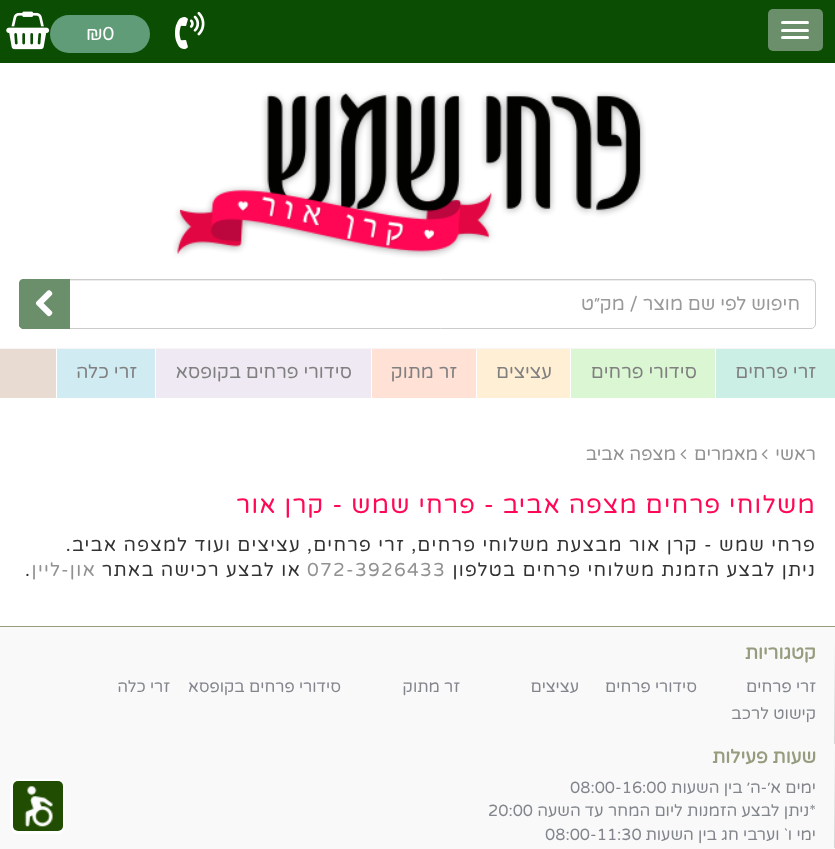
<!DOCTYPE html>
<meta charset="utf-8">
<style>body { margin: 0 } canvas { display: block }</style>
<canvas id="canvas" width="835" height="849"></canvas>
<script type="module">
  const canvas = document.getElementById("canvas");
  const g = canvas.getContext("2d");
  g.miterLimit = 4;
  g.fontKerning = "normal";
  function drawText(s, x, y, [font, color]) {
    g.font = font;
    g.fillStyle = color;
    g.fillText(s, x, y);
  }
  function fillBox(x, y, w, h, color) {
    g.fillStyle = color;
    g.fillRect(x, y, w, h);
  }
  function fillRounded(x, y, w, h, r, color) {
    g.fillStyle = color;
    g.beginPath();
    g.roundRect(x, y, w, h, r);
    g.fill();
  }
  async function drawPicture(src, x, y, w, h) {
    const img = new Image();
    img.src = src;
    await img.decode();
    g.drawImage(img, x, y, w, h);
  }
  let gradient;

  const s1 = ["18.75px Varela Round", "#FFFFFF"];
  const s2 = ["18.75px Varela Round", "#999999"];
  const s3 = ["18.75px Varela Round", "#808080"];
  const s4 = ["18px Varela Round", "#929292"];
  const s5 = ["24.75px Varela Round", "#FF0855"];
  const s6 = ["18.75px Varela Round", "#333333"];
  const s7 = ["18.75px Varela Round", "#929292"];
  const s8 = ["bold 18.75px Varela Round", "#969D7F"];
  const s9 = ["16.25px Varela Round", "#82868C"];

  fillBox(0, 0, 835, 849, "#FFFFFF");
  fillBox(0, 0, 835, 63, "#0C4D04");
  fillRounded(768, 9, 55, 42, 5, "#6A8F6A");
  fillRounded(781, 21, 28, 3, 1.5, "#FFFFFF");
  fillRounded(781, 29, 28, 3, 1.5, "#FFFFFF");
  fillRounded(781, 36, 28, 3, 1.5, "#FFFFFF");
  await drawPicture("pic1.png", 175, 11, 30, 39);
  fillRounded(50, 15, 100, 38, 19, "#609C77");
  drawText("₪0", 86, 40, s1);
  await drawPicture("pic2.png", 6, 11, 44, 39);
  await drawPicture("pic3.png", 173, 91, 473, 167);
  g.fillStyle = "#ECECEC";
  g.beginPath();
  g.moveTo(70, 281);
  g.lineTo(811, 281);
  g.bezierCurveTo(813, 281, 815, 283, 815, 285);
  g.lineTo(815, 284);
  g.bezierCurveTo(815, 282, 813, 280, 811, 280);
  g.lineTo(70, 280);
  g.closePath();
  g.fill();
  g.beginPath();
  g.roundRect(69.5, 279.5, 746, 49, [0, 4.5, 4.5, 0]);
  g.strokeStyle = "#CCCCCC";
  g.stroke();
  g.direction = "rtl";
  drawText("חיפוש לפי שם מוצר / מק״ט", 800, 310, s2);
  g.fillStyle = "#6A8F6A";
  g.beginPath();
  g.roundRect(19, 279, 51, 50, [5, 0, 0, 5]);
  g.fill();
  g.beginPath();
  g.moveTo(24, 279);
  g.bezierCurveTo(22, 279, 21, 280, 20, 280);
  g.lineTo(21, 281);
  g.bezierCurveTo(22, 280, 23, 280, 24, 280);
  g.lineTo(69, 280);
  g.lineTo(70, 279);
  g.closePath();
  g.moveTo(70, 329);
  g.lineTo(22, 329);
  g.lineTo(20, 327);
  g.lineTo(21, 326);
  g.lineTo(23, 328);
  g.lineTo(69, 328);
  g.closePath();
  g.fill();
  g.beginPath();
  g.moveTo(20, 280);
  g.bezierCurveTo(20, 281, 19, 282, 19, 284);
  g.lineTo(19, 324);
  g.bezierCurveTo(19, 325, 19, 327, 20, 327);
  g.lineTo(21, 326);
  g.bezierCurveTo(19, 324, 20, 320, 20, 317);
  g.lineTo(20, 284);
  g.lineTo(21, 281);
  g.closePath();
  g.fill();
  await drawPicture("pic4.png", 35, 290, 18, 27);
  fillBox(0, 348, 835, 1, "#F7F5F6");
  fillBox(716, 349, 119, 49, "#CBEFE5");
  drawText("זרי פרחים", 816, 378, s3);
  fillBox(571, 349, 144, 49, "#DBF6D3");
  drawText("סידורי פרחים", 697, 378, s3);
  fillBox(477, 349, 93, 49, "#FFEFD5");
  drawText("עציצים", 552, 378, s3);
  fillBox(372, 349, 104, 49, "#FFE1D6");
  drawText("זר מתוק", 457, 378, s3);
  fillBox(156, 349, 215, 49, "#EFE9F3");
  drawText("סידורי פרחים בקופסא", 352, 378, s3);
  fillBox(57, 349, 98, 49, "#D0EBF2");
  drawText("זרי כלה", 137, 378, s3);
  fillBox(0, 349, 56, 49, "#E8DBD2");
  drawText("ראשי", 816, 460, s4);
  await drawPicture("pic5.png", 761, 449, 7, 11);
  drawText("מאמרים", 758, 460, s4);
  await drawPicture("pic6.png", 680, 449, 7, 11);
  drawText("מצפה אביב", 676, 460, s4);
  g.letterSpacing = "1.25px";
  drawText("משלוחי פרחים מצפה אביב - פרחי שמש - קרן אור", 816, 513, s5);
  drawText("פרחי שמש - קרן אור מבצעת משלוחי פרחים, זרי פרחים, עציצים ועוד למצפה אביב.", 816, 551, s6);
  drawText("ניתן לבצע הזמנת משלוחי פרחים בטלפון", 816, 576, s6);
  g.direction = "ltr";
  drawText("072-3926433", 307, 576, s7);
  g.direction = "rtl";
  drawText("או לבצע רכישה באתר", 301, 576, s6);
  drawText("און-ליין", 96, 576, s7);
  g.direction = "ltr";
  drawText(".", 25, 576, s6);
  fillBox(0, 627, 835, 222, "#F9F9F9");
  fillBox(0, 626, 835, 1, "#969D7F");
  gradient = g.createLinearGradient(834, 640, 834, 744);
  gradient.addColorStop(0, "#F9F9F9");
  gradient.addColorStop(1, "#D6D6D6");
  g.fillStyle = gradient;
  g.fillRect(834, 640, 1, 104);
  g.letterSpacing = "0px";
  g.direction = "rtl";
  drawText("קטגוריות", 816, 659, s8);
  drawText("זרי פרחים", 816, 692, s9);
  drawText("סידורי פרחים", 697, 692, s9);
  drawText("עציצים", 579, 692, s9);
  drawText("זר מתוק", 460, 692, s9);
  drawText("סידורי פרחים בקופסא", 341, 692, s9);
  drawText("זרי כלה", 170, 692, s9);
  drawText("קישוט לרכב", 816, 719, s9);
  gradient = g.createLinearGradient(834, 744, 834, 848);
  gradient.addColorStop(0, "#F9F9F9");
  gradient.addColorStop(1, "#D6D6D6");
  g.fillStyle = gradient;
  g.fillRect(834, 744, 1, 104);
  drawText("שעות פעילות", 816, 763, s8);
  drawText("ימים א׳-ה׳ בין השעות", 816, 793, s9);
  g.direction = "ltr";
  drawText("08:00-16:00", 570, 793, s9);
  g.direction = "rtl";
  drawText("*ניתן לבצע הזמנות ליום המחר עד השעה", 816, 816, s9);
  g.direction = "ltr";
  drawText("20:00", 488, 816, s9);
  g.direction = "rtl";
  drawText("ימי ו` וערבי חג בין השעות", 816, 840, s9);
  g.direction = "ltr";
  drawText("08:00-11:30", 545, 840, s9);
  g.beginPath();
  g.roundRect(11.5, 780.5, 52, 52, 6.5);
  g.strokeStyle = "#FFFFFF";
  g.lineWidth = 3;
  g.stroke();
  fillRounded(13, 781, 50, 50, 5, "#204D02");
  await drawPicture("pic7.png", 24, 786, 29, 41);
</script>
